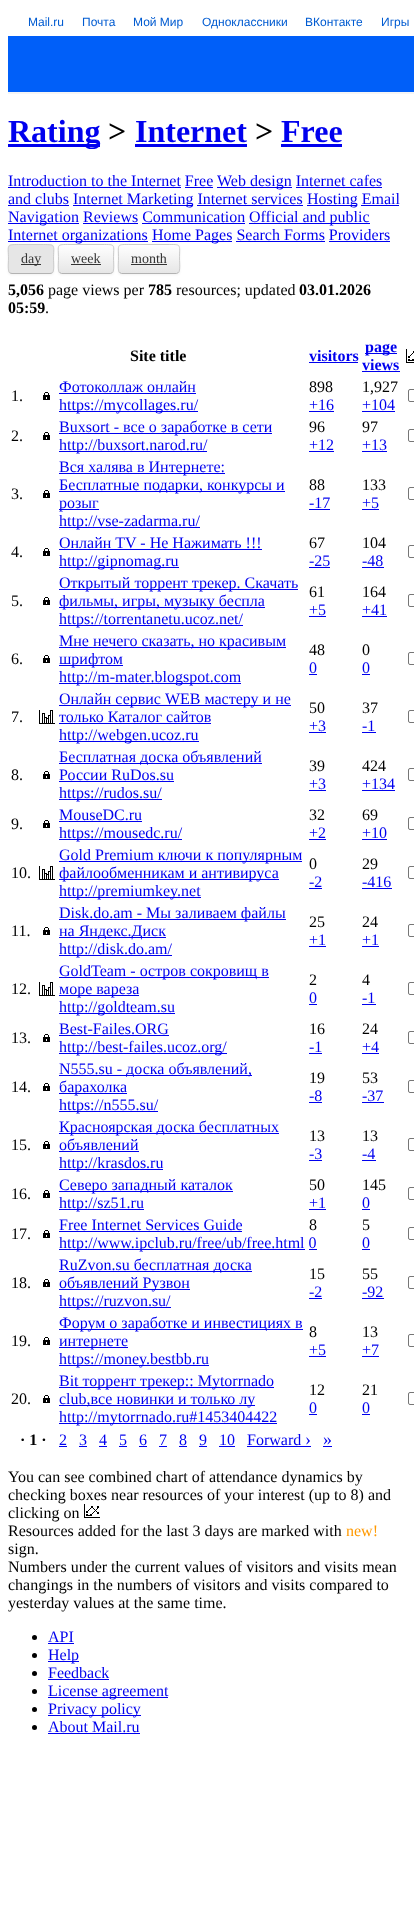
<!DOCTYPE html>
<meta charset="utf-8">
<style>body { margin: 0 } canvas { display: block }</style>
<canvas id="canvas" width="414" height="1918"></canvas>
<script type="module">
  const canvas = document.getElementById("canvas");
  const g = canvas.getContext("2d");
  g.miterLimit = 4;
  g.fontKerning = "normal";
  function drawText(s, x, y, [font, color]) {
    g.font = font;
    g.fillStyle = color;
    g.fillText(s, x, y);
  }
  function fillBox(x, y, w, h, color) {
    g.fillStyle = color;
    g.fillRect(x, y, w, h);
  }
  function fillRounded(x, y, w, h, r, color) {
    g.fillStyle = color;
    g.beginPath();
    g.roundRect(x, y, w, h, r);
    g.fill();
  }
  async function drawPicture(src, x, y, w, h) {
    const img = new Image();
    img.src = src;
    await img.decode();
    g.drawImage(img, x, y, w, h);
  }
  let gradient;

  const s1 = ["12px Liberation Sans", "#005BD1"];
  const s2 = ["bold 32px Liberation Serif", "#0000EE"];
  const s3 = ["bold 32px Liberation Serif", "#000000"];
  const s4 = ["16px Liberation Serif", "#0000EE"];
  const s5 = ["14px Liberation Serif", "#333333"];
  const s6 = ["bold 16px Liberation Serif", "#000000"];
  const s7 = ["16px Liberation Serif", "#000000"];
  const s8 = ["bold 16px Liberation Serif", "#0000EE"];
  const s9 = ["18px Liberation Serif", "#0000EE"];
  const s10 = ["16px Liberation Serif", "#FF9900"];

  fillBox(0, 0, 414, 1918, "#FFFFFF");
  drawText("Mail.ru", 28, 26, s1);
  drawText("Почта", 82, 26, s1);
  drawText("Мой Мир", 133, 26, s1);
  drawText("Одноклассники", 202, 26, s1);
  drawText("ВКонтакте", 305, 26, s1);
  drawText("Игры", 381, 26, s1);
  fillBox(8, 92, 406, 2, "#F5F5F5");
  fillBox(8, 36, 406, 56, "#005FF9");
  fillBox(8, 144, 92, 3, "#0000EE");
  drawText("Rating", 8, 142, s2);
  drawText(">", 108, 142, s3);
  drawText("Internet", 135, 142, s2);
  fillBox(135, 144, 112, 3, "#0000EE");
  drawText(">", 255, 142, s3);
  drawText("Free", 281, 142, s2);
  fillBox(281, 144, 61, 3, "#0000EE");
  drawText("Introduction to the Internet Free", 8, 186, s4);
  fillBox(8, 187, 173, 1, "#0000EE");
  fillBox(217, 187, 75, 1, "#0000EE");
  drawText("Web design Internet cafes", 217, 186, s4);
  fillBox(185, 187, 28, 1, "#0000EE");
  drawText("and clubs", 8, 204, s4);
  fillBox(296, 187, 86, 1, "#0000EE");
  fillBox(8, 205, 61, 1, "#0000EE");
  fillBox(73, 205, 120, 1, "#0000EE");
  drawText("Internet Marketing Internet services", 73, 204, s4);
  fillBox(307, 205, 50, 1, "#0000EE");
  drawText("Hosting Email", 307, 204, s4);
  fillBox(197, 205, 106, 1, "#0000EE");
  fillBox(361, 205, 38, 1, "#0000EE");
  fillBox(8, 223, 71, 1, "#0000EE");
  drawText("Navigation Reviews Communication", 8, 222, s4);
  fillBox(249, 223, 121, 1, "#0000EE");
  drawText("Official and public", 249, 222, s4);
  fillBox(83, 223, 55, 1, "#0000EE");
  fillBox(142, 223, 103, 1, "#0000EE");
  fillBox(8, 241, 140, 1, "#0000EE");
  drawText("Internet organizations", 8, 240, s4);
  fillBox(152, 241, 80, 1, "#0000EE");
  drawText("Home Pages Search Forms Providers", 152, 240, s4);
  fillBox(236, 241, 89, 1, "#0000EE");
  fillBox(329, 241, 61, 1, "#0000EE");
  g.fillStyle = "rgba(0, 0, 0, 0.05)";
  g.filter = "blur(1px)";
  g.beginPath();
  g.roundRect(8, 245, 46, 30, 4);
  g.fill();
  g.filter = "none";
  fillRounded(8, 244, 46, 30, 4, "#E6E6E6");
  g.beginPath();
  g.moveTo(52.5, 272.5);
  g.bezierCurveTo(52, 273, 51, 273.5, 50, 273.5);
  g.lineTo(12, 273.5);
  g.bezierCurveTo(11, 273.5, 10, 273, 9.5, 272.5);
  g.strokeStyle = "#B3B3B3";
  g.stroke();
  g.beginPath();
  g.moveTo(9.5, 272.5);
  g.bezierCurveTo(7.5, 270.5, 8.5, 262, 8.5, 259);
  g.bezierCurveTo(8.5, 245.5, 5.5, 244.5, 18.5, 244.5);
  g.lineTo(43.5, 244.5);
  g.bezierCurveTo(56.5, 244.5, 53.5, 245.5, 53.5, 259);
  g.bezierCurveTo(53.5, 262, 54.5, 270.5, 52.5, 272.5);
  g.strokeStyle = "#CCCCCC";
  g.stroke();
  fillBox(21, 264, 20, 1, "#333333");
  drawText("day", 21, 263, s5);
  g.fillStyle = "rgba(0, 0, 0, 0.05)";
  g.filter = "blur(1px)";
  g.beginPath();
  g.roundRect(58, 245, 56, 30, 4);
  g.fill();
  g.filter = "none";
  fillRounded(58, 244, 56, 30, 4, "#F5F5F5");
  g.save();
  g.beginPath();
  g.roundRect(58, 244, 56, 30, 4);
  g.clip();
  gradient = g.createLinearGradient(86, 245, 86, 273);
  gradient.addColorStop(0, "#FFFFFF");
  gradient.addColorStop(1, "#E6E6E6");
  g.fillStyle = gradient;
  g.fillRect(58, 245, 56, 28);
  g.restore();
  g.fillStyle = "#FFFFFF";
  g.beginPath();
  g.moveTo(62, 246);
  g.lineTo(110, 246);
  g.bezierCurveTo(112, 246, 113, 247, 113, 249);
  g.bezierCurveTo(113, 243, 106, 245, 102, 245);
  g.lineTo(70, 245);
  g.bezierCurveTo(66, 245, 59, 243, 59, 249);
  g.bezierCurveTo(59, 247, 60, 246, 62, 246);
  g.closePath();
  g.fill();
  g.beginPath();
  g.moveTo(112.5, 272.5);
  g.lineTo(110.5, 273.5);
  g.lineTo(61.5, 273.5);
  g.lineTo(59.5, 272.5);
  g.strokeStyle = "#B3B3B3";
  g.stroke();
  g.beginPath();
  g.moveTo(59.5, 272.5);
  g.bezierCurveTo(57.5, 270.5, 58.5, 262, 58.5, 259);
  g.bezierCurveTo(58.5, 244, 55.5, 244.5, 70, 244.5);
  g.lineTo(102, 244.5);
  g.bezierCurveTo(116.5, 244.5, 113.5, 244, 113.5, 259);
  g.bezierCurveTo(113.5, 262, 114.5, 270.5, 112.5, 272.5);
  g.strokeStyle = "#CCCCCC";
  g.stroke();
  drawText("week", 71, 263, s5);
  fillBox(71, 264, 30, 1, "#333333");
  g.fillStyle = "rgba(0, 0, 0, 0.05)";
  g.filter = "blur(1px)";
  g.beginPath();
  g.roundRect(118, 245, 62, 30, 4);
  g.fill();
  g.filter = "none";
  fillRounded(118, 244, 62, 30, 4, "#F5F5F5");
  g.save();
  g.beginPath();
  g.roundRect(118, 244, 62, 30, 4);
  g.clip();
  gradient = g.createLinearGradient(149, 245, 149, 273);
  gradient.addColorStop(0, "#FFFFFF");
  gradient.addColorStop(1, "#E6E6E6");
  g.fillStyle = gradient;
  g.fillRect(118, 245, 62, 28);
  g.restore();
  g.fillStyle = "#FFFFFF";
  g.beginPath();
  g.moveTo(122, 246);
  g.lineTo(176, 246);
  g.bezierCurveTo(178, 246, 179, 247, 179, 249);
  g.bezierCurveTo(179, 243, 171, 245, 167, 245);
  g.lineTo(131, 245);
  g.bezierCurveTo(127, 245, 119, 243, 119, 249);
  g.bezierCurveTo(119, 247, 120, 246, 122, 246);
  g.closePath();
  g.fill();
  g.beginPath();
  g.moveTo(178.5, 272.5);
  g.lineTo(176.5, 273.5);
  g.lineTo(121.5, 273.5);
  g.lineTo(119.5, 272.5);
  g.strokeStyle = "#B3B3B3";
  g.stroke();
  g.beginPath();
  g.moveTo(119.5, 272.5);
  g.bezierCurveTo(117.5, 270.5, 118.5, 262, 118.5, 259);
  g.bezierCurveTo(118.5, 243.5, 116, 244.5, 131, 244.5);
  g.lineTo(167, 244.5);
  g.bezierCurveTo(182, 244.5, 179.5, 243.5, 179.5, 259);
  g.bezierCurveTo(179.5, 262, 180.5, 270.5, 178.5, 272.5);
  g.strokeStyle = "#CCCCCC";
  g.stroke();
  drawText("month", 131, 263, s5);
  fillBox(131, 264, 36, 1, "#333333");
  drawText("5,056", 8, 295, s6);
  drawText("page views per", 48, 295, s7);
  drawText("785", 148, 295, s6);
  drawText("resources; updated", 176, 295, s7);
  drawText("03.01.2026", 299, 295, s6);
  drawText("05:59", 8, 313, s6);
  drawText(".", 45, 313, s7);
  drawText("Site title", 130, 361, s6);
  drawText("visitors", 309, 361, s8);
  fillBox(309, 362, 49, 1, "#0000EE");
  fillBox(365, 353, 32, 1, "#0000EE");
  drawText("page", 365, 352, s8);
  drawText("views", 362, 370, s8);
  fillBox(362, 371, 38, 1, "#0000EE");
  await drawPicture("pic1.png", 406, 349, 8, 14);
  drawText("1.", 11, 401, s7);
  await drawPicture("pic2.png", 43, 392, 7, 8);
  drawText("Фотоколлаж онлайн", 59, 392, s4);
  fillBox(59, 393, 137, 1, "#0000EE");
  fillBox(59, 411, 139, 1, "#0000EE");
  drawText("https://mycollages.ru/", 59, 410, s4);
  drawText("898", 309, 392, s7);
  drawText("+16", 309, 410, s4);
  fillBox(309, 411, 25, 1, "#0000EE");
  drawText("1,927", 362, 392, s7);
  drawText("+104", 362, 410, s4);
  fillBox(362, 411, 33, 1, "#0000EE");
  g.beginPath();
  g.roundRect(408.5, 389.5, 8, 12, 1.5);
  g.strokeStyle = "#767676";
  g.stroke();
  drawText("2.", 11, 441, s7);
  await drawPicture("pic2.png", 43, 432, 7, 8);
  fillBox(59, 433, 213, 1, "#0000EE");
  drawText("Buxsort - все о заработке в сети", 59, 432, s4);
  fillBox(59, 451, 148, 1, "#0000EE");
  drawText("http://buxsort.narod.ru/", 59, 450, s4);
  drawText("96", 309, 432, s7);
  drawText("+12", 309, 450, s4);
  fillBox(309, 451, 25, 1, "#0000EE");
  drawText("97", 362, 432, s7);
  drawText("+13", 362, 450, s4);
  fillBox(362, 451, 25, 1, "#0000EE");
  g.beginPath();
  g.roundRect(408.5, 429.5, 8, 12, 1.5);
  g.stroke();
  drawText("3.", 11, 499, s7);
  await drawPicture("pic2.png", 43, 490, 7, 8);
  fillBox(59, 473, 166, 1, "#0000EE");
  drawText("Вся халява в Интернете:", 59, 472, s4);
  fillBox(59, 491, 226, 1, "#0000EE");
  drawText("Бесплатные подарки, конкурсы и", 59, 490, s4);
  fillBox(59, 509, 40, 1, "#0000EE");
  drawText("розыг", 59, 508, s4);
  fillBox(59, 527, 141, 1, "#0000EE");
  drawText("http://vse-zadarma.ru/", 59, 526, s4);
  drawText("88", 309, 490, s7);
  drawText("-17", 309, 508, s4);
  fillBox(309, 509, 21, 1, "#0000EE");
  drawText("133", 362, 490, s7);
  drawText("+5", 362, 508, s4);
  fillBox(362, 509, 17, 1, "#0000EE");
  g.beginPath();
  g.roundRect(408.5, 487.5, 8, 12, 1.5);
  g.stroke();
  drawText("4.", 11, 557, s7);
  await drawPicture("pic2.png", 43, 548, 7, 8);
  drawText("Онлайн TV - Не Нажимать !!!", 59, 548, s4);
  fillBox(59, 549, 203, 1, "#0000EE");
  fillBox(59, 567, 120, 1, "#0000EE");
  drawText("http://gipnomag.ru", 59, 566, s4);
  drawText("67", 309, 548, s7);
  drawText("-25", 309, 566, s4);
  fillBox(309, 567, 21, 1, "#0000EE");
  drawText("104", 362, 548, s7);
  drawText("-48", 362, 566, s4);
  fillBox(362, 567, 22, 1, "#0000EE");
  g.beginPath();
  g.roundRect(408.5, 545.5, 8, 12, 1.5);
  g.stroke();
  drawText("5.", 11, 606, s7);
  await drawPicture("pic2.png", 43, 597, 7, 8);
  fillBox(59, 589, 239, 1, "#0000EE");
  drawText("Открытый торрент трекер. Скачать", 59, 588, s4);
  fillBox(59, 607, 206, 1, "#0000EE");
  drawText("фильмы, игры, музыку беспла", 59, 606, s4);
  fillBox(59, 625, 184, 1, "#0000EE");
  drawText("https://torrentanetu.ucoz.net/", 59, 624, s4);
  drawText("61", 309, 597, s7);
  drawText("+5", 309, 615, s4);
  fillBox(309, 616, 17, 1, "#0000EE");
  drawText("164", 362, 597, s7);
  drawText("+41", 362, 615, s4);
  fillBox(362, 616, 25, 1, "#0000EE");
  g.beginPath();
  g.roundRect(408.5, 594.5, 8, 12, 1.5);
  g.stroke();
  drawText("6.", 11, 664, s7);
  await drawPicture("pic2.png", 43, 655, 7, 8);
  fillBox(59, 647, 227, 1, "#0000EE");
  drawText("Мне нечего сказать, но красивым", 59, 646, s4);
  fillBox(59, 665, 64, 1, "#0000EE");
  drawText("шрифтом", 59, 664, s4);
  fillBox(59, 683, 182, 1, "#0000EE");
  drawText("http://m-mater.blogspot.com", 59, 682, s4);
  drawText("48", 309, 655, s7);
  drawText("0", 309, 673, s4);
  fillBox(309, 674, 8, 1, "#0000EE");
  drawText("0", 362, 655, s7);
  drawText("0", 362, 673, s4);
  fillBox(362, 674, 8, 1, "#0000EE");
  g.beginPath();
  g.roundRect(408.5, 652.5, 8, 12, 1.5);
  g.stroke();
  drawText("7.", 11, 722, s7);
  await drawPicture("pic3.png", 39, 710, 16, 14);
  fillBox(59, 705, 232, 1, "#0000EE");
  drawText("Онлайн сервис WEB мастеру и не", 59, 704, s4);
  drawText("только Каталог сайтов", 59, 722, s4);
  fillBox(59, 723, 152, 1, "#0000EE");
  fillBox(59, 741, 140, 1, "#0000EE");
  drawText("http://webgen.ucoz.ru", 59, 740, s4);
  drawText("50", 309, 713, s7);
  drawText("+3", 309, 731, s4);
  fillBox(309, 732, 17, 1, "#0000EE");
  drawText("37", 362, 713, s7);
  drawText("-1", 362, 731, s4);
  fillBox(362, 732, 14, 1, "#0000EE");
  g.beginPath();
  g.roundRect(408.5, 710.5, 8, 12, 1.5);
  g.stroke();
  drawText("8.", 11, 780, s7);
  await drawPicture("pic2.png", 43, 771, 7, 8);
  fillBox(59, 763, 203, 1, "#0000EE");
  drawText("Бесплатная доска объявлений", 59, 762, s4);
  drawText("России RuDos.su", 59, 780, s4);
  fillBox(59, 781, 115, 1, "#0000EE");
  fillBox(59, 799, 103, 1, "#0000EE");
  drawText("https://rudos.su/", 59, 798, s4);
  drawText("39", 309, 771, s7);
  drawText("+3", 309, 789, s4);
  fillBox(309, 790, 17, 1, "#0000EE");
  drawText("424", 362, 771, s7);
  drawText("+134", 362, 789, s4);
  fillBox(362, 790, 33, 1, "#0000EE");
  g.beginPath();
  g.roundRect(408.5, 768.5, 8, 12, 1.5);
  g.stroke();
  drawText("9.", 11, 829, s7);
  await drawPicture("pic2.png", 43, 820, 7, 8);
  drawText("MouseDC.ru", 59, 820, s4);
  fillBox(59, 821, 83, 1, "#0000EE");
  fillBox(59, 839, 123, 1, "#0000EE");
  drawText("https://mousedc.ru/", 59, 838, s4);
  drawText("32", 309, 820, s7);
  drawText("+2", 309, 838, s4);
  fillBox(309, 839, 17, 1, "#0000EE");
  drawText("69", 362, 820, s7);
  drawText("+10", 362, 838, s4);
  fillBox(362, 839, 25, 1, "#0000EE");
  g.beginPath();
  g.roundRect(408.5, 817.5, 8, 12, 1.5);
  g.stroke();
  drawText("10.", 11, 878, s7);
  await drawPicture("pic3.png", 39, 866, 16, 14);
  fillBox(59, 861, 243, 1, "#0000EE");
  drawText("Gold Premium ключи к популярным", 59, 860, s4);
  fillBox(59, 879, 220, 1, "#0000EE");
  drawText("файлообменникам и антивируса", 59, 878, s4);
  fillBox(59, 897, 142, 1, "#0000EE");
  drawText("http://premiumkey.net", 59, 896, s4);
  drawText("0", 309, 869, s7);
  drawText("-2", 309, 887, s4);
  fillBox(309, 888, 13, 1, "#0000EE");
  drawText("29", 362, 869, s7);
  drawText("-416", 362, 887, s4);
  fillBox(362, 888, 30, 1, "#0000EE");
  g.beginPath();
  g.roundRect(408.5, 866.5, 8, 12, 1.5);
  g.stroke();
  drawText("11.", 11, 936, s7);
  await drawPicture("pic2.png", 43, 927, 7, 8);
  fillBox(59, 919, 227, 1, "#0000EE");
  drawText("Disk.do.am - Мы заливаем файлы", 59, 918, s4);
  fillBox(59, 937, 107, 1, "#0000EE");
  drawText("на Яндекс.Диск", 59, 936, s4);
  fillBox(59, 955, 113, 1, "#0000EE");
  drawText("http://disk.do.am/", 59, 954, s4);
  drawText("25", 309, 927, s7);
  drawText("+1", 309, 945, s4);
  fillBox(309, 946, 17, 1, "#0000EE");
  drawText("24", 362, 927, s7);
  drawText("+1", 362, 945, s4);
  fillBox(362, 946, 17, 1, "#0000EE");
  g.beginPath();
  g.roundRect(408.5, 924.5, 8, 12, 1.5);
  g.stroke();
  drawText("12.", 11, 994, s7);
  await drawPicture("pic3.png", 39, 982, 16, 14);
  fillBox(59, 977, 210, 1, "#0000EE");
  drawText("GoldTeam - остров сокровищ в", 59, 976, s4);
  fillBox(59, 995, 80, 1, "#0000EE");
  drawText("море вареза", 59, 994, s4);
  fillBox(59, 1013, 116, 1, "#0000EE");
  drawText("http://goldteam.su", 59, 1012, s4);
  drawText("2", 309, 985, s7);
  drawText("0", 309, 1003, s4);
  fillBox(309, 1004, 8, 1, "#0000EE");
  drawText("4", 362, 985, s7);
  drawText("-1", 362, 1003, s4);
  fillBox(362, 1004, 14, 1, "#0000EE");
  g.beginPath();
  g.roundRect(408.5, 982.5, 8, 12, 1.5);
  g.stroke();
  drawText("13.", 11, 1043, s7);
  await drawPicture("pic2.png", 43, 1034, 7, 8);
  drawText("Best-Failes.ORG", 59, 1034, s4);
  fillBox(59, 1035, 110, 1, "#0000EE");
  fillBox(59, 1053, 168, 1, "#0000EE");
  drawText("http://best-failes.ucoz.org/", 59, 1052, s4);
  drawText("16", 309, 1034, s7);
  drawText("-1", 309, 1052, s4);
  fillBox(309, 1053, 13, 1, "#0000EE");
  drawText("24", 362, 1034, s7);
  drawText("+4", 362, 1052, s4);
  fillBox(362, 1053, 17, 1, "#0000EE");
  g.beginPath();
  g.roundRect(408.5, 1031.5, 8, 12, 1.5);
  g.stroke();
  drawText("14.", 11, 1092, s7);
  await drawPicture("pic2.png", 43, 1083, 7, 8);
  fillBox(59, 1075, 193, 1, "#0000EE");
  drawText("N555.su - доска объявлений,", 59, 1074, s4);
  fillBox(59, 1093, 68, 1, "#0000EE");
  drawText("барахолка", 59, 1092, s4);
  fillBox(59, 1111, 99, 1, "#0000EE");
  drawText("https://n555.su/", 59, 1110, s4);
  drawText("19", 309, 1083, s7);
  drawText("-8", 309, 1101, s4);
  fillBox(309, 1102, 13, 1, "#0000EE");
  drawText("53", 362, 1083, s7);
  drawText("-37", 362, 1101, s4);
  fillBox(362, 1102, 22, 1, "#0000EE");
  g.beginPath();
  g.roundRect(408.5, 1080.5, 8, 12, 1.5);
  g.stroke();
  drawText("15.", 11, 1150, s7);
  await drawPicture("pic2.png", 43, 1141, 7, 8);
  fillBox(59, 1133, 220, 1, "#0000EE");
  drawText("Красноярская доска бесплатных", 59, 1132, s4);
  drawText("объявлений", 59, 1150, s4);
  fillBox(59, 1151, 80, 1, "#0000EE");
  fillBox(59, 1169, 104, 1, "#0000EE");
  drawText("http://krasdos.ru", 59, 1168, s4);
  drawText("13", 309, 1141, s7);
  drawText("-3", 309, 1159, s4);
  fillBox(309, 1160, 13, 1, "#0000EE");
  drawText("13", 362, 1141, s7);
  drawText("-4", 362, 1159, s4);
  fillBox(362, 1160, 14, 1, "#0000EE");
  g.beginPath();
  g.roundRect(408.5, 1138.5, 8, 12, 1.5);
  g.stroke();
  drawText("16.", 11, 1199, s7);
  await drawPicture("pic2.png", 43, 1190, 7, 8);
  fillBox(59, 1191, 174, 1, "#0000EE");
  drawText("Северо западный каталок", 59, 1190, s4);
  fillBox(59, 1209, 85, 1, "#0000EE");
  drawText("http://sz51.ru", 59, 1208, s4);
  drawText("50", 309, 1190, s7);
  drawText("+1", 309, 1208, s4);
  fillBox(309, 1209, 17, 1, "#0000EE");
  drawText("145", 362, 1190, s7);
  drawText("0", 362, 1208, s4);
  fillBox(362, 1209, 8, 1, "#0000EE");
  g.beginPath();
  g.roundRect(408.5, 1187.5, 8, 12, 1.5);
  g.stroke();
  drawText("Free Internet Services Guide", 59, 1230, s4);
  fillBox(59, 1231, 183, 1, "#0000EE");
  fillBox(59, 1249, 246, 1, "#0000EE");
  drawText("http://www.ipclub.ru/free/ub/free.html 0", 59, 1248, s4);
  drawText("17.", 11, 1239, s7);
  await drawPicture("pic2.png", 43, 1230, 7, 8);
  drawText("8", 309, 1230, s7);
  fillBox(309, 1249, 8, 1, "#0000EE");
  drawText("5", 362, 1230, s7);
  drawText("0", 362, 1248, s4);
  fillBox(362, 1249, 8, 1, "#0000EE");
  g.beginPath();
  g.roundRect(408.5, 1227.5, 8, 12, 1.5);
  g.stroke();
  drawText("18.", 11, 1288, s7);
  await drawPicture("pic2.png", 43, 1279, 7, 8);
  fillBox(59, 1271, 193, 1, "#0000EE");
  drawText("RuZvon.su бесплатная доска", 59, 1270, s4);
  fillBox(59, 1289, 131, 1, "#0000EE");
  drawText("объявлений Рузвон", 59, 1288, s4);
  fillBox(59, 1307, 112, 1, "#0000EE");
  drawText("https://ruzvon.su/", 59, 1306, s4);
  drawText("15", 309, 1279, s7);
  drawText("-2", 309, 1297, s4);
  fillBox(309, 1298, 13, 1, "#0000EE");
  drawText("55", 362, 1279, s7);
  drawText("-92", 362, 1297, s4);
  fillBox(362, 1298, 22, 1, "#0000EE");
  g.beginPath();
  g.roundRect(408.5, 1276.5, 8, 12, 1.5);
  g.stroke();
  drawText("19.", 11, 1346, s7);
  await drawPicture("pic2.png", 43, 1337, 7, 8);
  fillBox(59, 1329, 244, 1, "#0000EE");
  drawText("Форум о заработке и инвестициях в", 59, 1328, s4);
  fillBox(59, 1347, 69, 1, "#0000EE");
  drawText("интернете", 59, 1346, s4);
  fillBox(59, 1365, 150, 1, "#0000EE");
  drawText("https://money.bestbb.ru", 59, 1364, s4);
  drawText("8", 309, 1337, s7);
  drawText("+5", 309, 1355, s4);
  fillBox(309, 1356, 17, 1, "#0000EE");
  drawText("13", 362, 1337, s7);
  drawText("+7", 362, 1355, s4);
  fillBox(362, 1356, 17, 1, "#0000EE");
  g.beginPath();
  g.roundRect(408.5, 1334.5, 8, 12, 1.5);
  g.stroke();
  drawText("20.", 11, 1404, s7);
  await drawPicture("pic2.png", 43, 1395, 7, 8);
  fillBox(59, 1387, 215, 1, "#0000EE");
  drawText("Bit торрент трекер:: Mytorrnado", 59, 1386, s4);
  fillBox(59, 1405, 196, 1, "#0000EE");
  drawText("club,все новинки и только лу", 59, 1404, s4);
  fillBox(59, 1423, 218, 1, "#0000EE");
  drawText("http://mytorrnado.ru#1453404422", 59, 1422, s4);
  drawText("12", 309, 1395, s7);
  drawText("0", 309, 1413, s4);
  fillBox(309, 1414, 8, 1, "#0000EE");
  drawText("21", 362, 1395, s7);
  drawText("0", 362, 1413, s4);
  fillBox(362, 1414, 8, 1, "#0000EE");
  g.beginPath();
  g.roundRect(408.5, 1392.5, 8, 12, 1.5);
  g.stroke();
  drawText("· 1 ·", 20, 1445, s6);
  drawText("2", 59, 1445, s4);
  fillBox(59, 1446, 8, 1, "#0000EE");
  drawText("3", 79, 1445, s4);
  fillBox(79, 1446, 8, 1, "#0000EE");
  drawText("4", 99, 1445, s4);
  fillBox(99, 1446, 8, 1, "#0000EE");
  drawText("5", 119, 1445, s4);
  fillBox(119, 1446, 8, 1, "#0000EE");
  drawText("6", 139, 1445, s4);
  fillBox(139, 1446, 8, 1, "#0000EE");
  drawText("7", 159, 1445, s4);
  fillBox(159, 1446, 8, 1, "#0000EE");
  drawText("8", 179, 1445, s4);
  fillBox(179, 1446, 8, 1, "#0000EE");
  drawText("9", 199, 1445, s4);
  fillBox(199, 1446, 8, 1, "#0000EE");
  drawText("10", 219, 1445, s4);
  fillBox(219, 1446, 16, 1, "#0000EE");
  drawText("Forward", 247, 1445, s4);
  drawText("›", 305, 1445, s9);
  fillBox(247, 1446, 64, 1, "#0000EE");
  drawText("»", 323, 1445, s9);
  fillBox(323, 1446, 9, 1, "#0000EE");
  drawText("You can see combined chart of attendance dynamics by", 8, 1482, s7);
  drawText("checking boxes near resources of your interest (up to 8) and", 8, 1500, s7);
  drawText("clicking on", 8, 1518, s7);
  await drawPicture("pic4.png", 84, 1504, 16, 14);
  drawText("Resources added for the last 3 days are marked with", 8, 1536, s7);
  drawText("new!", 346, 1536, s10);
  drawText("sign.", 8, 1554, s7);
  drawText("Numbers under the current values of visitors and visits mean", 8, 1572, s7);
  drawText("changings in the numbers of visitors and visits compared to", 8, 1590, s7);
  drawText("yesterday values at the same time.", 8, 1608, s7);
  g.beginPath();
  g.arc(34.5, 1637.5, 2.5, 0, Math.PI * 2);
  g.fill();
  drawText("API", 48, 1642, s4);
  fillBox(48, 1643, 26, 1, "#0000EE");
  g.fillStyle = "#000000";
  g.beginPath();
  g.arc(34.5, 1655.5, 2.5, 0, Math.PI * 2);
  g.fill();
  fillBox(48, 1661, 31, 1, "#0000EE");
  drawText("Help", 48, 1660, s4);
  g.fillStyle = "#000000";
  g.beginPath();
  g.arc(34.5, 1673.5, 2.5, 0, Math.PI * 2);
  g.fill();
  drawText("Feedback", 48, 1678, s4);
  fillBox(48, 1679, 61, 1, "#0000EE");
  g.fillStyle = "#000000";
  g.beginPath();
  g.arc(34.5, 1691.5, 2.5, 0, Math.PI * 2);
  g.fill();
  fillBox(48, 1697, 120, 1, "#0000EE");
  drawText("License agreement", 48, 1696, s4);
  g.fillStyle = "#000000";
  g.beginPath();
  g.arc(34.5, 1709.5, 2.5, 0, Math.PI * 2);
  g.fill();
  fillBox(48, 1715, 93, 1, "#0000EE");
  drawText("Privacy policy", 48, 1714, s4);
  g.fillStyle = "#000000";
  g.beginPath();
  g.arc(34.5, 1727.5, 2.5, 0, Math.PI * 2);
  g.fill();
  drawText("About Mail.ru", 48, 1732, s4);
  fillBox(48, 1733, 92, 1, "#0000EE");
</script>
